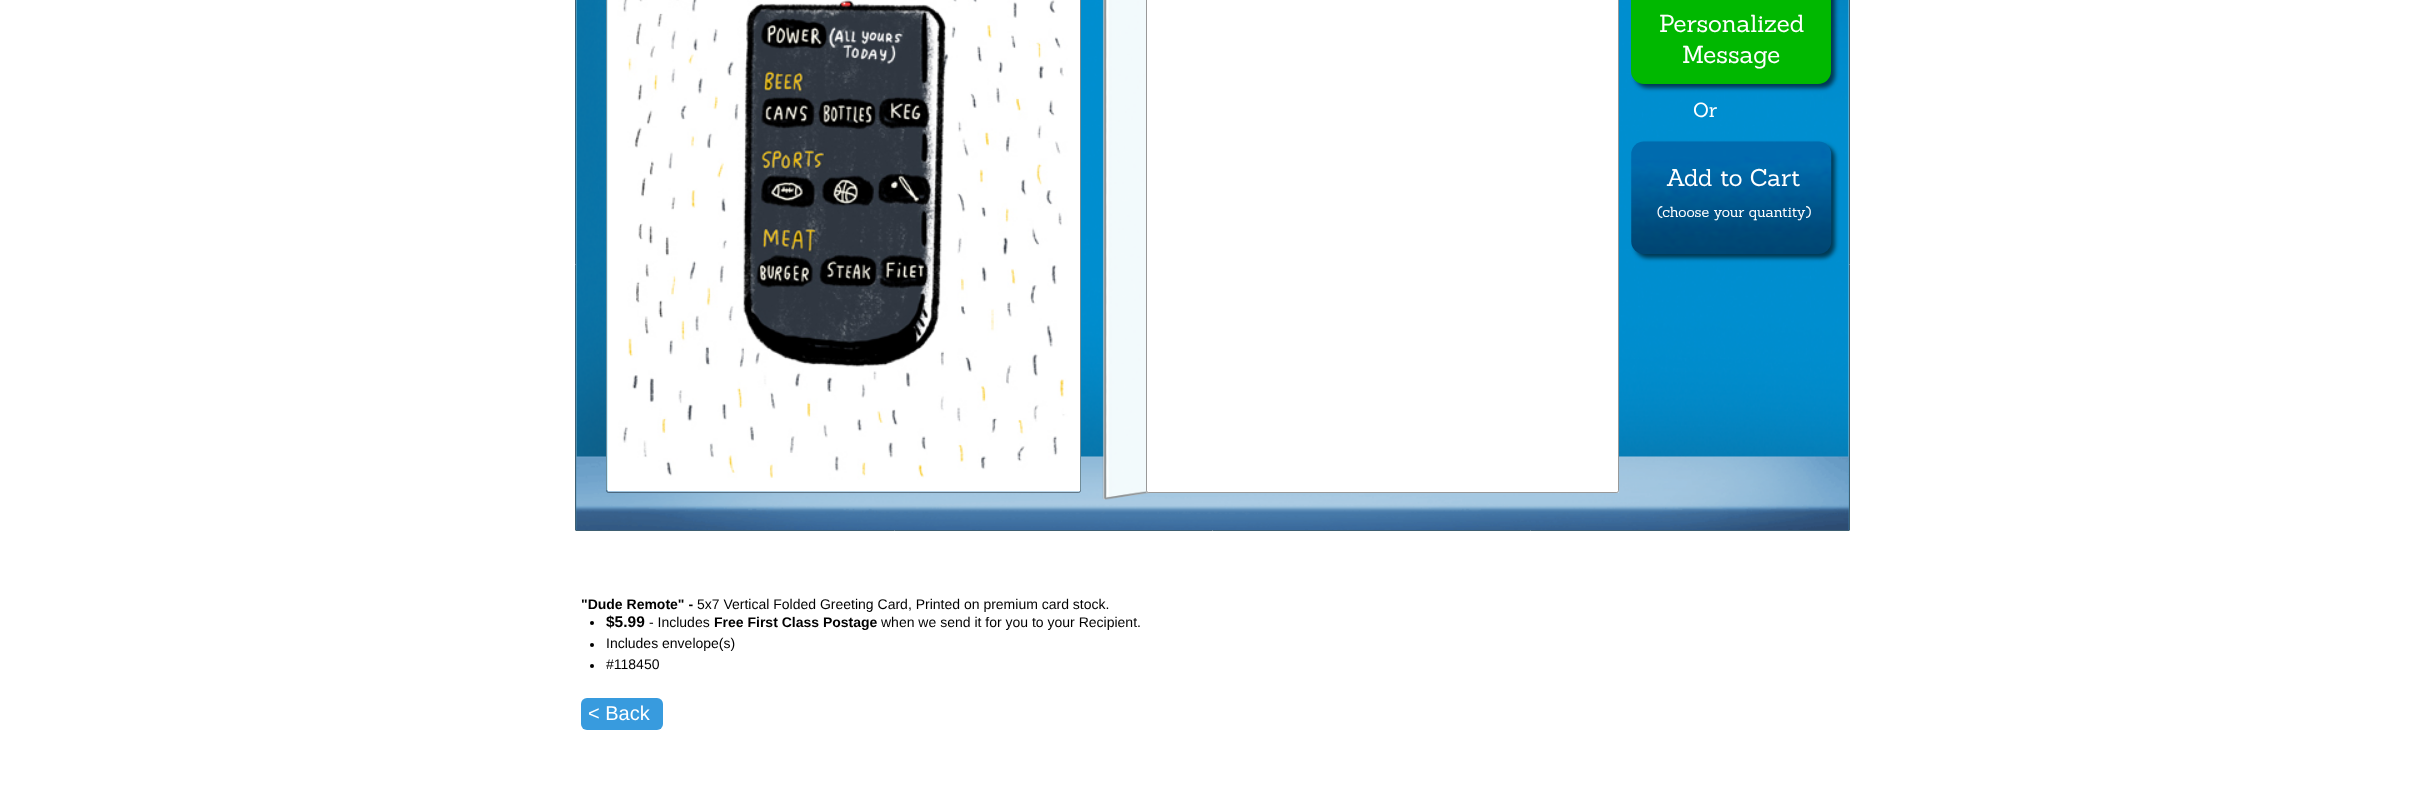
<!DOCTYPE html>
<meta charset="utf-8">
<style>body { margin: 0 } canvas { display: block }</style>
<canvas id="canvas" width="2424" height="812"></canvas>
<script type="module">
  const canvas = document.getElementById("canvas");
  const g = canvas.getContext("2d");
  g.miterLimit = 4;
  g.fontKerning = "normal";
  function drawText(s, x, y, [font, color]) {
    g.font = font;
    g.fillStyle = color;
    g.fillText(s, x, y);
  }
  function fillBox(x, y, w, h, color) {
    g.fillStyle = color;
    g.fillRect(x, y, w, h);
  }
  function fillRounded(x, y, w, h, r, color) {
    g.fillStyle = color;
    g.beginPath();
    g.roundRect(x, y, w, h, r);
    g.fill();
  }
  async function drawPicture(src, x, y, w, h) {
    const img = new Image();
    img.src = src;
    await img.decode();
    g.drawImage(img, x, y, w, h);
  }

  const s1 = ["24px Sanchez", "#FFFFFF"];
  const s2 = ["20px Sanchez", "#FFFFFF"];
  const s3 = ["23.75px Sanchez", "#FFFFFF"];
  const s4 = ["14.25px Sanchez", "#FFFFFF"];
  const s5 = ["bold 14px Liberation Sans", "#000000"];
  const s6 = ["14px Liberation Sans", "#000000"];
  const s7 = ["bold 15.5px Liberation Sans", "#000000"];
  const s8 = ["20px Liberation Sans", "#FFFFFF"];

  fillBox(0, 0, 2424, 812, "#FFFFFF");
  await drawPicture("pic1.png", 576, 0, 1273, 530);
  g.beginPath();
  g.roundRect(575.5, -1.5, 1274, 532, 0.5);
  g.strokeStyle = "#3E5F71";
  g.stroke();
  fillBox(606, 0, 475, 490, "#BBECFF");
  g.beginPath();
  g.roundRect(606.5, -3.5, 474, 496, 2);
  g.strokeStyle = "rgba(0, 0, 0, 0.4)";
  g.stroke();
  await drawPicture("pic2.png", 607, 0, 473, 492);
  await drawPicture("pic3.png", 1102, 0, 49, 500);
  fillRounded(1146, -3, 473, 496, 2.5, "#FFFFFF");
  g.beginPath();
  g.roundRect(1146.5, -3.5, 472, 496, 2);
  g.stroke();
  await drawPicture("pic4.png", 1147, 491, 471, 1);
  g.fillStyle = "rgba(0, 0, 0, 0.6)";
  g.filter = "blur(2px)";
  g.beginPath();
  g.roundRect(1635, -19, 200, 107, 13);
  g.fill();
  g.filter = "none";
  fillRounded(1631, -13, 200, 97, 13, "#00B800");
  drawText("Personalized", 1659, 32, s1);
  drawText("Message", 1682, 63, s1);
  drawText("Or", 1693, 117, s2);
  g.fillStyle = "rgba(0, 0, 0, 0.6)";
  g.filter = "blur(2px)";
  g.beginPath();
  g.roundRect(1635, 145, 200, 113, 13);
  g.fill();
  g.filter = "none";
  await drawPicture("pic5.png", 1631, 141, 201, 113);
  drawText("Add to Cart", 1666, 186, s3);
  drawText("(choose your quantity)", 1657, 217, s4);
  drawText("\"Dude Remote\" -", 581, 609, s5);
  drawText("5x7 Vertical Folded Greeting Card, Printed on premium card stock.", 697, 609, s6);
  g.beginPath();
  g.arc(592, 623, 2, 0, Math.PI * 2);
  g.fill();
  drawText("$5.99", 606, 627, s7);
  drawText("- Includes", 649, 627, s6);
  drawText("Free First Class Postage", 714, 627, s5);
  drawText("when we send it for you to your Recipient.", 881, 627, s6);
  g.beginPath();
  g.arc(592, 645, 2, 0, Math.PI * 2);
  g.fill();
  drawText("Includes envelope(s)", 606, 648, s6);
  g.beginPath();
  g.arc(592, 666, 2, 0, Math.PI * 2);
  g.fill();
  drawText("#118450", 606, 669, s6);
  fillRounded(581, 698, 82, 32, 6, "#389BDE");
  drawText("< Back", 588, 720, s8);
</script>
